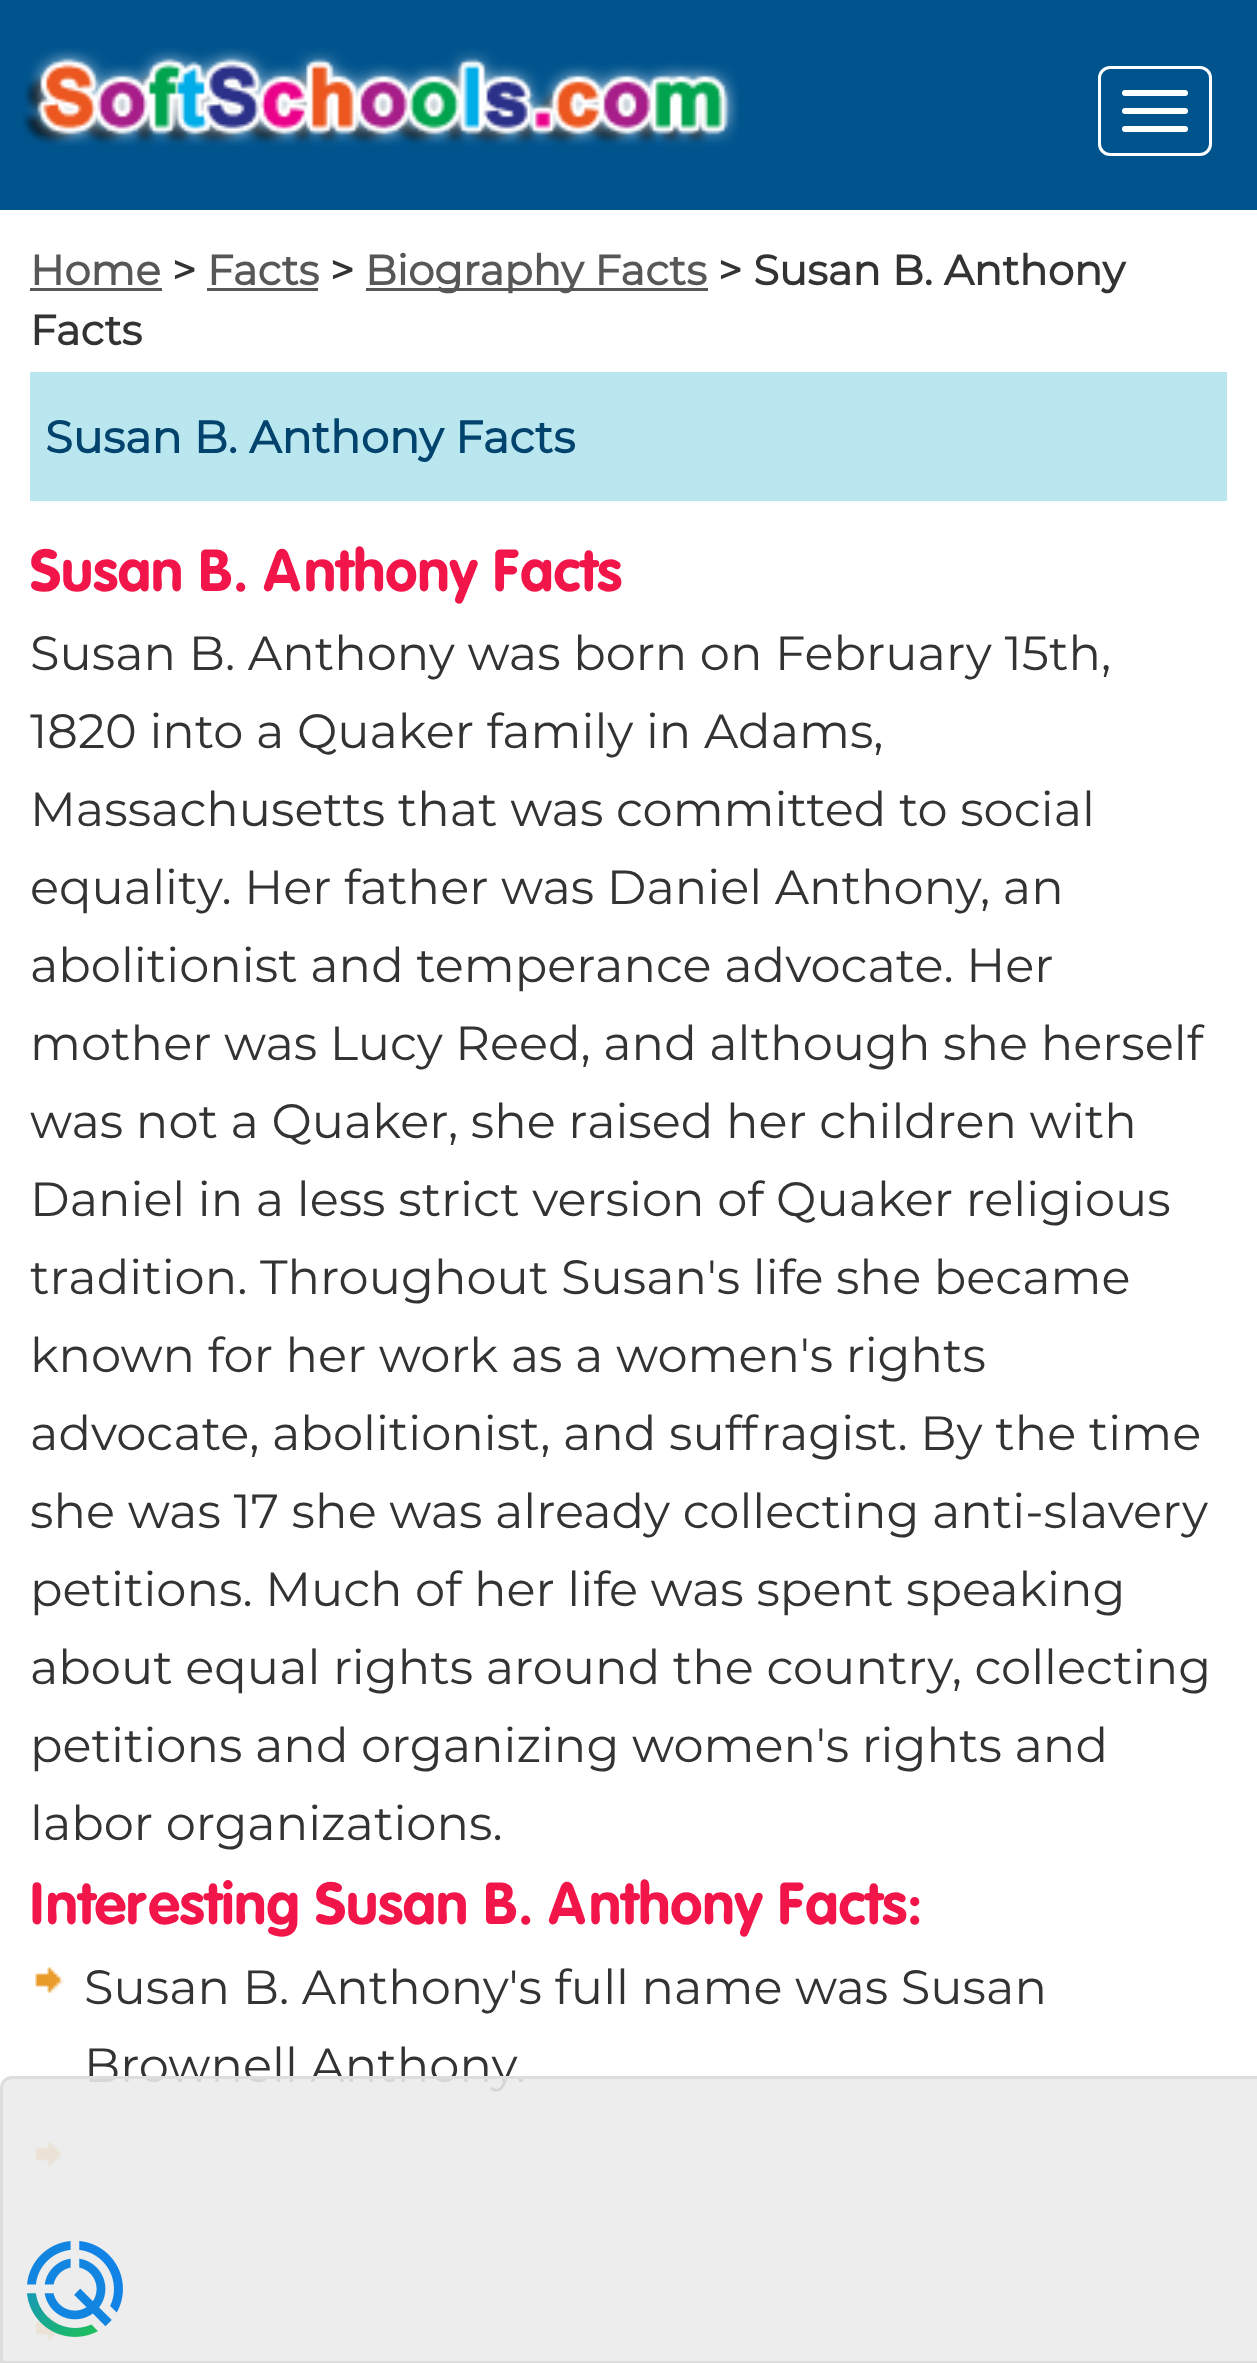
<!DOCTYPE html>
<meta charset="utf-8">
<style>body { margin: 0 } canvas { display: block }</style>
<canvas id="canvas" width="1257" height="2363"></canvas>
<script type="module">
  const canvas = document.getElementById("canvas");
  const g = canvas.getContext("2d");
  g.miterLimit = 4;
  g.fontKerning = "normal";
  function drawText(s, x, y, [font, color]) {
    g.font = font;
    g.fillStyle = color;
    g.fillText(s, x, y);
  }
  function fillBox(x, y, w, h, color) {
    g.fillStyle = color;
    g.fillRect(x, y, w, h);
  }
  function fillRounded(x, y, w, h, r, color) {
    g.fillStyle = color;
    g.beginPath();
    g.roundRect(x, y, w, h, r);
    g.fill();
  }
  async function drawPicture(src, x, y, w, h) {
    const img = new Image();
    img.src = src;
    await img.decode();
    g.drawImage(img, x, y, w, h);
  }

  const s1 = ["bold 42px Montserrat", "#575757"];
  const s2 = ["bold 42px Montserrat", "#333333"];
  const s3 = ["bold 45px Montserrat", "#01436D"];
  const s4 = ["bold 60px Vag", "#F11549"];
  const s5 = ["48px Montserrat", "#333333"];

  fillBox(0, 0, 1257, 2363, "#00548E");
  await drawPicture("pic1.png", 22, 48, 717, 98);
  g.beginPath();
  g.roundRect(1099.5, 67.5, 111, 87, 10.5);
  g.strokeStyle = "#FFFFFF";
  g.lineWidth = 3;
  g.stroke();
  fillRounded(1122, 90, 66, 6, 3, "#FFFFFF");
  fillRounded(1122, 108, 66, 6, 3, "#FFFFFF");
  fillRounded(1122, 126, 66, 6, 3, "#FFFFFF");
  fillBox(0, 210, 1257, 2151, "#FFFFFF");
  drawText("Home", 30, 285, s1);
  fillBox(30, 288, 132, 3, "#575757");
  drawText(">", 172, 285, s2);
  drawText("Facts", 207, 285, s1);
  fillBox(207, 288, 111, 3, "#575757");
  drawText(">", 330, 285, s2);
  fillBox(366, 288, 342, 3, "#575757");
  drawText("Biography Facts", 365, 285, s1);
  drawText("> Susan B. Anthony", 718, 285, s2);
  drawText("Facts", 30, 345, s2);
  fillBox(30, 372, 1197, 129, "#BAE6EF");
  drawText("Susan B. Anthony Facts", 45, 453, s3);
  drawText("Susan B. Anthony Facts", 30, 591, s4);
  drawText("Susan B. Anthony was born on February 15th,", 30, 670, s5);
  drawText("1820 into a Quaker family in Adams,", 30, 748, s5);
  drawText("Massachusetts that was committed to social", 30, 826, s5);
  drawText("equality. Her father was Daniel Anthony, an", 30, 904, s5);
  drawText("abolitionist and temperance advocate. Her", 30, 982, s5);
  drawText("mother was Lucy Reed, and although she herself", 30, 1060, s5);
  drawText("was not a Quaker, she raised her children with", 30, 1138, s5);
  drawText("Daniel in a less strict version of Quaker religious", 30, 1216, s5);
  drawText("tradition. Throughout Susan's life she became", 30, 1294, s5);
  drawText("known for her work as a women's rights", 30, 1372, s5);
  drawText("advocate, abolitionist, and suffragist. By the time", 30, 1450, s5);
  drawText("she was 17 she was already collecting anti-slavery", 30, 1528, s5);
  drawText("petitions. Much of her life was spent speaking", 30, 1606, s5);
  drawText("about equal rights around the country, collecting", 30, 1684, s5);
  drawText("petitions and organizing women's rights and", 30, 1762, s5);
  drawText("labor organizations.", 30, 1840, s5);
  drawText("Interesting Susan B. Anthony Facts:", 30, 1924, s4);
  await drawPicture("pic2.png", 35, 1967, 29, 26);
  drawText("Susan B. Anthony's full name was Susan", 84, 2004, s5);
  drawText("Brownell Anthony.", 84, 2082, s5);
  await drawPicture("pic2.png", 35, 2141, 29, 26);
  await drawPicture("pic2.png", 35, 2315, 29, 26);
  g.fillStyle = "rgba(235, 235, 235, 0.89)";
  g.beginPath();
  g.moveTo(12, 2077.5);
  g.lineTo(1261.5, 2077.5);
  g.lineTo(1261.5, 2362.5);
  g.lineTo(1.5, 2362.5);
  g.lineTo(1.5, 2088);
  g.bezierCurveTo(1.5, 2082, 6, 2077.5, 12, 2077.5);
  g.closePath();
  g.fill();
  g.strokeStyle = "#DDDDDD";
  g.stroke();
  await drawPicture("pic3.png", 27, 2241, 96, 96);
</script>
